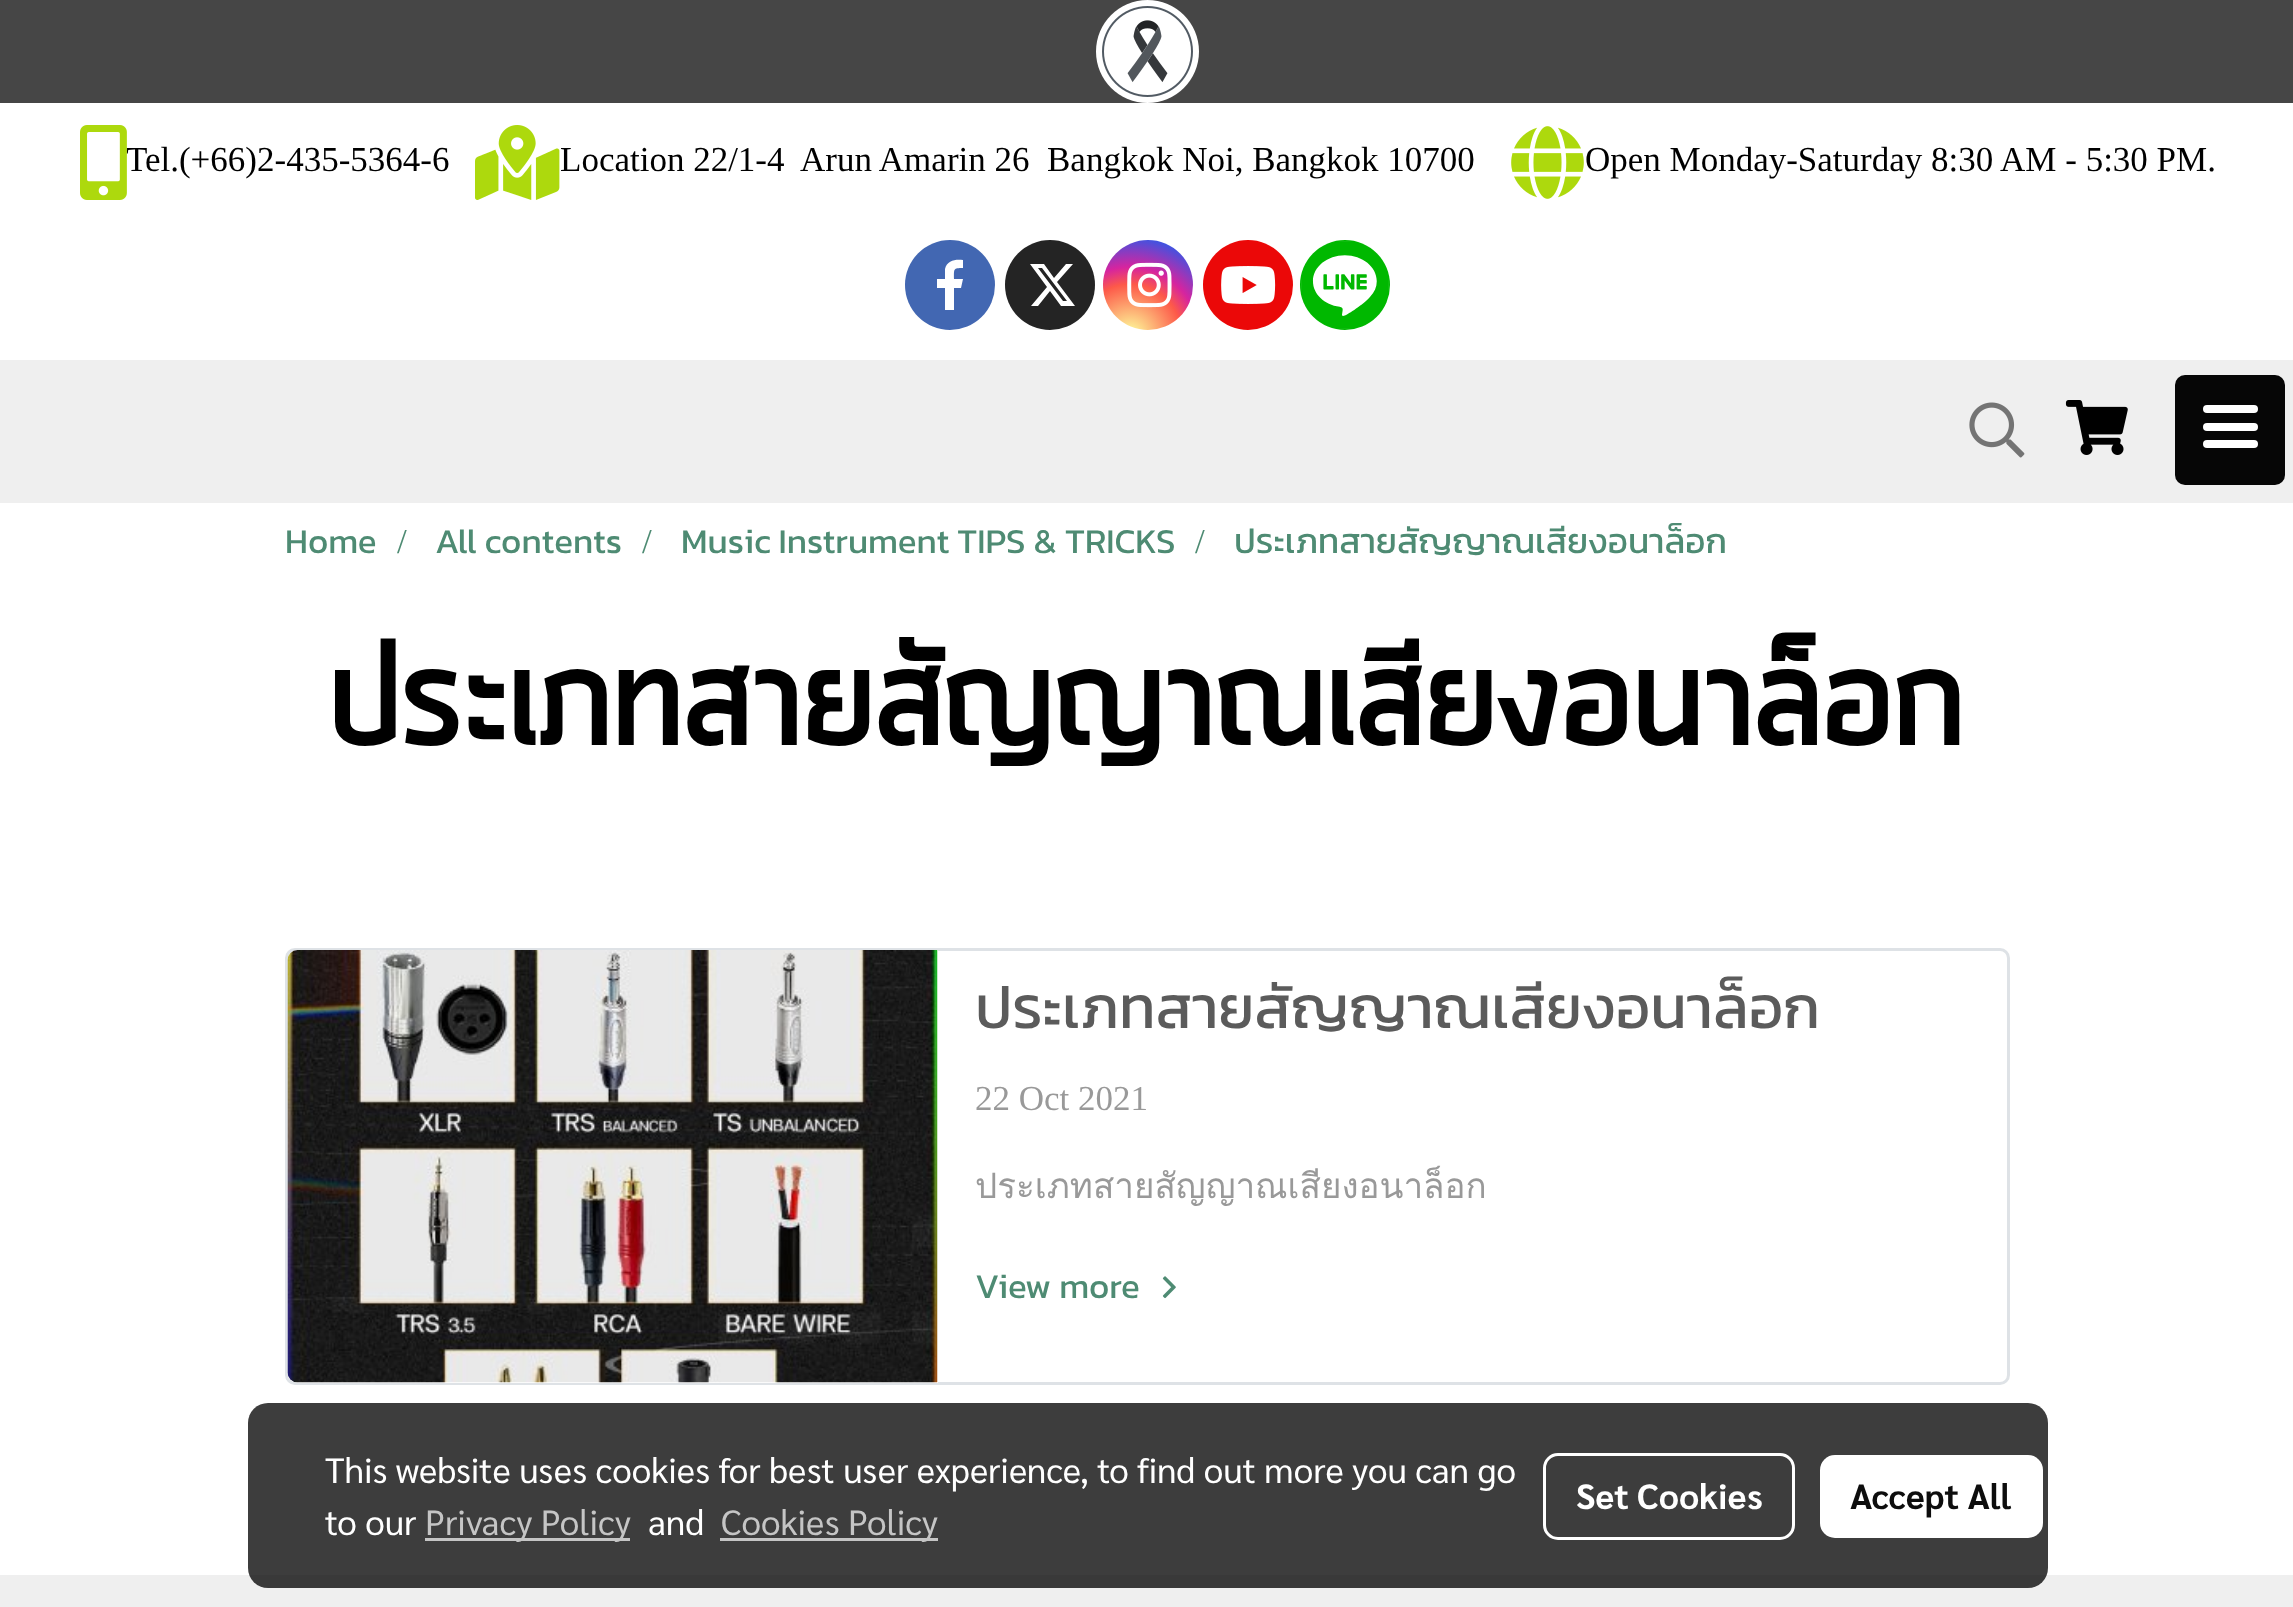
<!DOCTYPE html>
<meta charset="utf-8">
<style>body { margin: 0 } canvas { display: block }</style>
<canvas id="canvas" width="2293" height="1607"></canvas>
<script type="module">
  const canvas = document.getElementById("canvas");
  const g = canvas.getContext("2d");
  g.miterLimit = 4;
  g.fontKerning = "normal";
  function drawText(s, x, y, [font, color]) {
    g.font = font;
    g.fillStyle = color;
    g.fillText(s, x, y);
  }
  function fillBox(x, y, w, h, color) {
    g.fillStyle = color;
    g.fillRect(x, y, w, h);
  }
  function fillRounded(x, y, w, h, r, color) {
    g.fillStyle = color;
    g.beginPath();
    g.roundRect(x, y, w, h, r);
    g.fill();
  }
  async function drawPicture(src, x, y, w, h) {
    const img = new Image();
    img.src = src;
    await img.decode();
    g.drawImage(img, x, y, w, h);
  }
  let gradient;

  const s1 = ["35px Liberation Serif", "#000000"];
  const s2 = ["35px Kanit", "#4E8B73"];
  const s3 = ["35px Liberation Serif", "#4E8B73"];
  const s4 = ["bold 150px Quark", "#000000"];
  const s5 = ["60px Kanit", "#5B5B5B"];
  const s6 = ["35px Liberation Serif", "#999999"];
  const s7 = ["35px Loma", "#999999"];
  const s8 = ["35px Sarabun", "#FFFFFF"];
  const s9 = ["35px Sarabun", "#C5C5C5"];
  const s10 = ["bold 35px Sarabun", "#FFFFFF"];
  const s11 = ["bold 35px Sarabun", "#0D0D0D"];

  fillBox(0, 0, 2293, 1607, "#FFFFFF");
  fillBox(0, 0, 2293, 103, "#464646");
  await drawPicture("pic1.png", 1096, 0, 103, 103);
  fillBox(0, 360, 2293, 143, "#EFEFEF");
  drawText("Tel.(+66)2-435-5364-6", 126, 171, s1);
  await drawPicture("pic2.png", 80, 125, 47, 75);
  await drawPicture("pic3.png", 475, 125, 85, 75);
  drawText("Location 22/1-4  Arun Amarin 26  Bangkok Noi, Bangkok 10700", 560, 171, s1);
  await drawPicture("pic4.png", 1511, 126, 73, 73);
  drawText("Open Monday-Saturday 8:30 AM - 5:30 PM.", 1585, 171, s1);
  g.fillStyle = "#4267B2";
  g.beginPath();
  g.arc(950, 285, 45, 0, Math.PI * 2);
  g.fill();
  g.fillStyle = "#FFFFFF";
  g.beginPath();
  g.moveTo(945, 310);
  g.lineTo(945, 288);
  g.lineTo(937, 288);
  g.lineTo(937, 279);
  g.lineTo(945, 279);
  g.lineTo(945, 269);
  g.bezierCurveTo(947, 260, 956, 259, 963, 260);
  g.lineTo(963, 268);
  g.bezierCurveTo(953, 268, 954, 269, 954, 279);
  g.lineTo(963, 279);
  g.lineTo(961, 288);
  g.lineTo(954, 288);
  g.lineTo(954, 310);
  g.fill();
  g.fillStyle = "#242424";
  g.beginPath();
  g.arc(1050, 285, 45, 0, Math.PI * 2);
  g.fill();
  g.fillStyle = "#FFFFFF";
  g.beginPath();
  g.moveTo(1066, 264);
  g.lineTo(1073, 264);
  g.lineTo(1057, 282);
  g.lineTo(1075, 306);
  g.lineTo(1061, 306);
  g.lineTo(1050, 291);
  g.lineTo(1038, 306);
  g.lineTo(1031, 306);
  g.lineTo(1047, 287);
  g.lineTo(1030, 264);
  g.lineTo(1044, 264);
  g.lineTo(1054, 278);
  g.closePath();
  g.moveTo(1063, 301);
  g.lineTo(1067, 301);
  g.lineTo(1042, 268);
  g.lineTo(1038, 268);
  g.closePath();
  g.fill();
  gradient = g.createRadialGradient(1130, 336, 0, 1130, 336, 115);
  gradient.addColorStop(0, "#FDF497");
  gradient.addColorStop(0.05, "#FDF497");
  gradient.addColorStop(0.45, "#FD5949");
  gradient.addColorStop(0.6, "#D6249F");
  gradient.addColorStop(0.9, "#285AEB");
  g.fillStyle = gradient;
  g.beginPath();
  g.arc(1148, 285, 45, 0, Math.PI * 2);
  g.fill();
  await drawPicture("pic5.png", 1127, 262, 45, 46);
  g.fillStyle = "#EB0808";
  g.beginPath();
  g.arc(1248, 285, 45, 0, Math.PI * 2);
  g.fill();
  await drawPicture("pic6.png", 1221, 266, 55, 38);
  g.fillStyle = "#00B800";
  g.beginPath();
  g.arc(1345, 285, 45, 0, Math.PI * 2);
  g.fill();
  await drawPicture("pic7.png", 1301, 241, 88, 88);
  await drawPicture("pic8.png", 1969, 402, 56, 56);
  await drawPicture("pic9.png", 2065, 400, 63, 55);
  fillRounded(2175, 375, 110, 110, 10, "#060606");
  fillRounded(2203, 423, 55, 8, 4, "#FFFFFF");
  fillRounded(2203, 405, 55, 8, 4, "#FFFFFF");
  fillRounded(2203, 440, 55, 8, 4, "#FFFFFF");
  drawText("Home", 285, 553, s2);
  drawText("/", 397, 553, s3);
  drawText("All contents", 435, 553, s2);
  drawText("/", 642, 553, s3);
  drawText("Music Instrument TIPS & TRICKS", 681, 553, s2);
  drawText("/", 1195, 553, s3);
  drawText("ประเภทสายสัญญาณเสียงอนาล็อก", 1234, 553, s2);
  drawText("ประเภทสายสัญญาณเสียงอนาล็อก", 329, 745, s4);
  g.beginPath();
  g.roundRect(286.5, 949.5, 1722, 434, 8.5);
  g.strokeStyle = "#DEE2E6";
  g.lineWidth = 3;
  g.stroke();
  g.fillStyle = "#FFFFFF";
  g.beginPath();
  g.roundRect(288, 950, 650, 433, [10, 0, 0, 10]);
  g.fill();
  await drawPicture("pic10.png", 287, 950, 651, 433);
  drawText("ประเภทสายสัญญาณเสียงอนาล็อก", 975, 1028, s5);
  drawText("22 Oct 2021", 975, 1110, s6);
  drawText("ประเภทสายสัญญาณเสียงอนาล็อก", 975, 1198, s7);
  drawText("View more", 975, 1298, s2);
  await drawPicture("pic11.png", 1162, 1276, 14, 23);
  fillBox(0, 1575, 2293, 32, "#EFEFEF");
  fillRounded(248, 1403, 1800, 185, 20, "rgba(0, 0, 0, 0.76)");
  drawText("This website uses cookies for best user experience, to find out more you can go", 325, 1483, s8);
  drawText("to our", 325, 1535, s8);
  fillBox(425, 1538, 205, 3, "#C5C5C5");
  drawText("Privacy Policy", 425, 1535, s9);
  drawText("and", 648, 1535, s8);
  fillBox(720, 1538, 218, 3, "#C5C5C5");
  drawText("Cookies Policy", 721, 1535, s9);
  g.beginPath();
  g.roundRect(1544.5, 1454.5, 249, 84, 13.5);
  g.strokeStyle = "#FFFFFF";
  g.stroke();
  drawText("Set Cookies", 1576, 1509, s10);
  fillRounded(1820, 1455, 223, 83, 15, "#FFFFFF");
  drawText("Accept All", 1850, 1509, s11);
</script>
